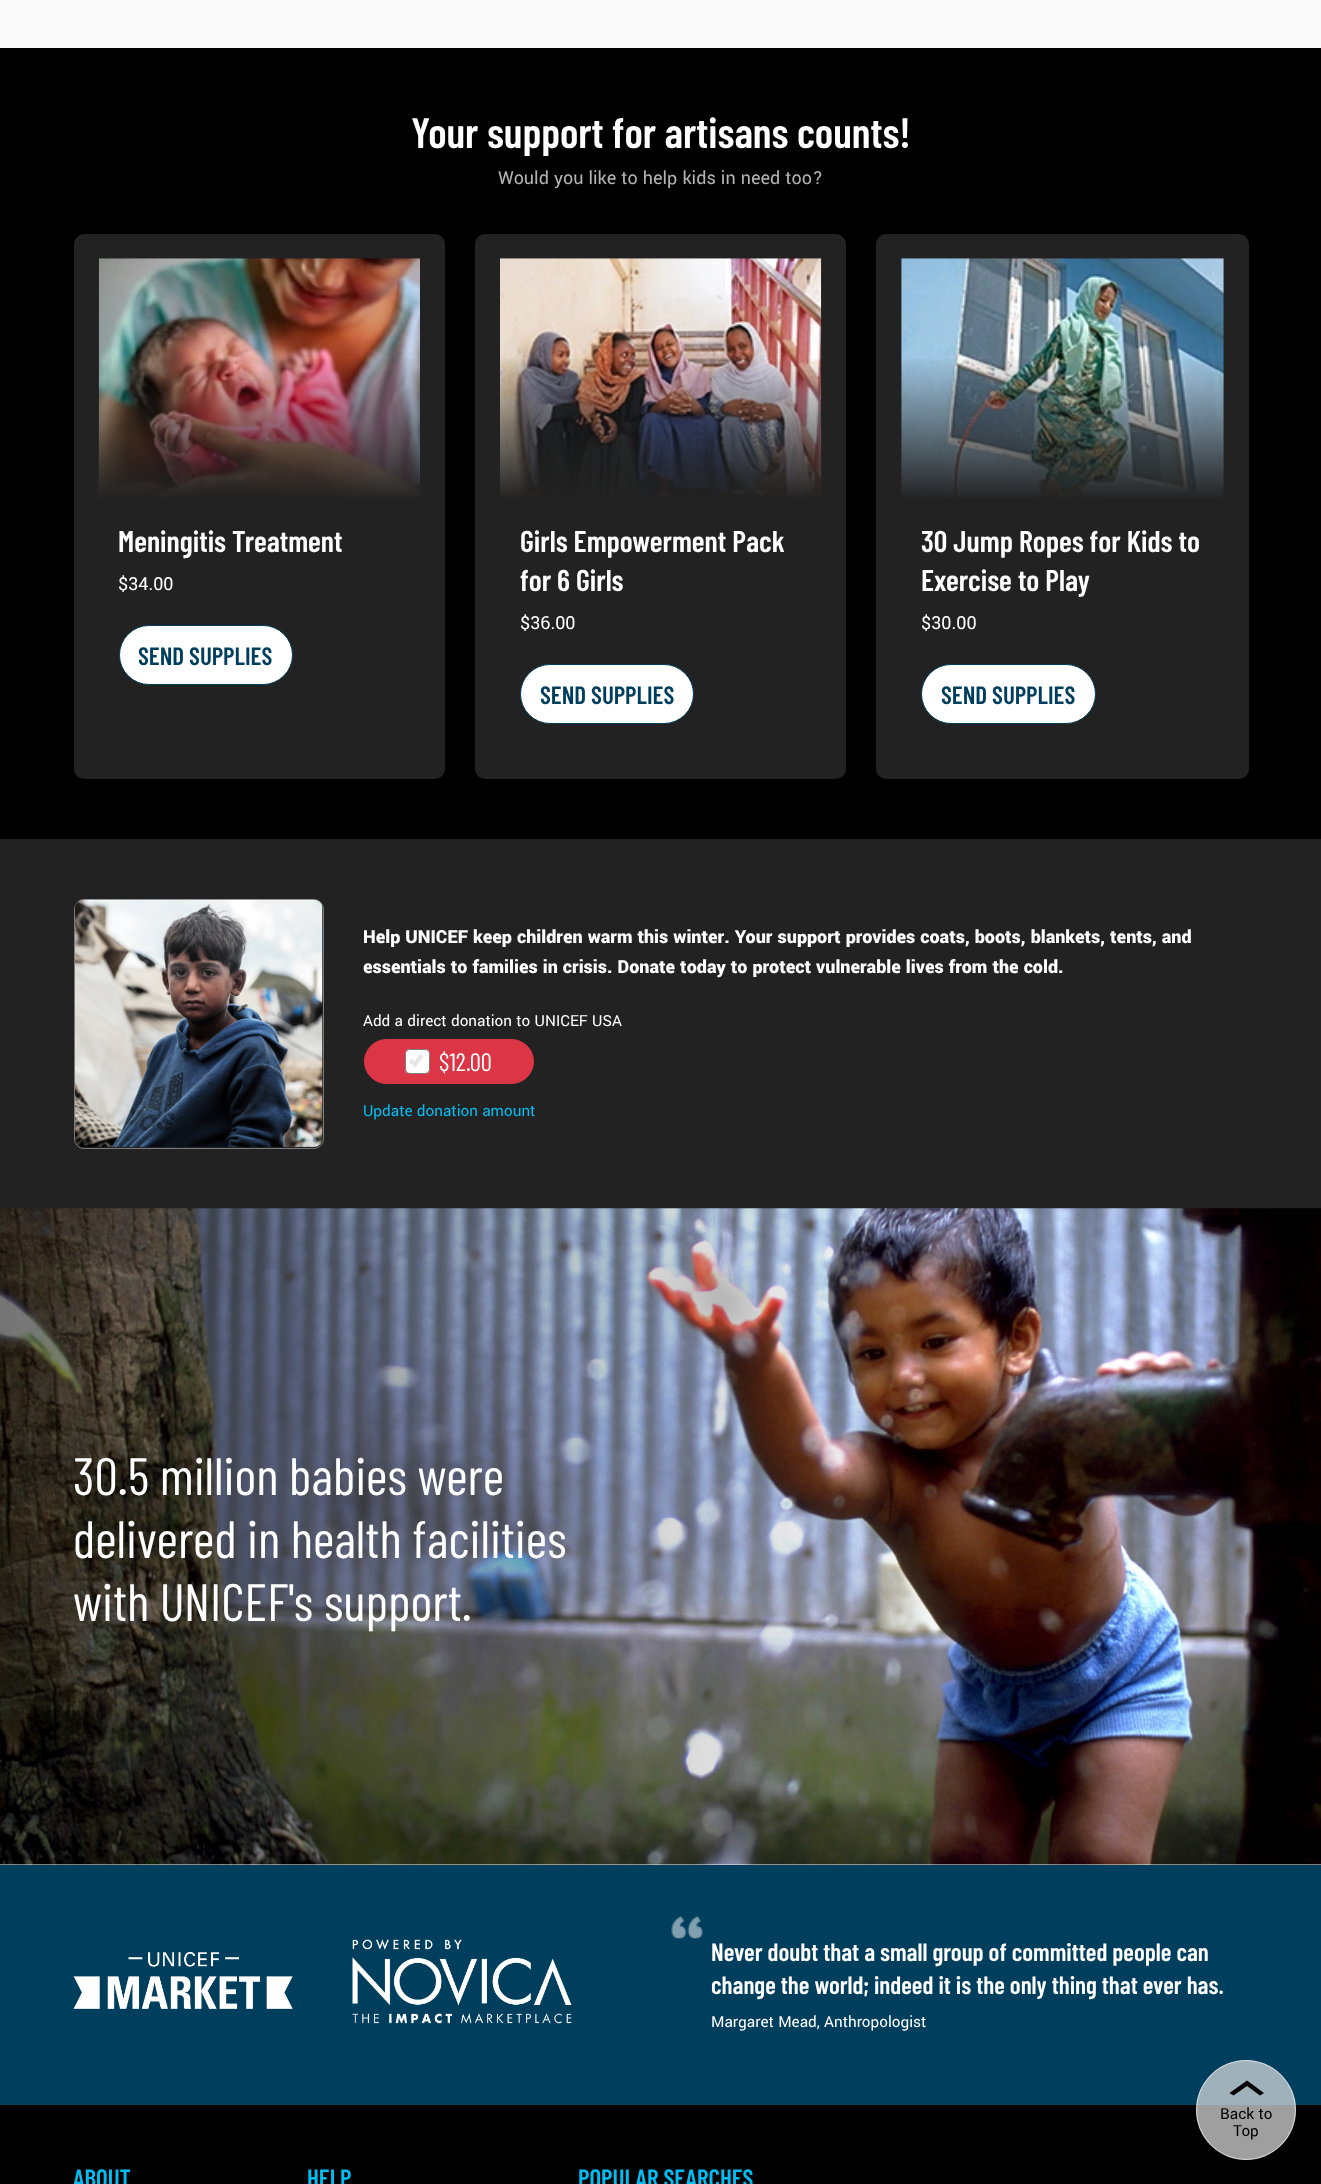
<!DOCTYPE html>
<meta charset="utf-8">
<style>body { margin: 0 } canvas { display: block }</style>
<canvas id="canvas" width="1321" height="2184"></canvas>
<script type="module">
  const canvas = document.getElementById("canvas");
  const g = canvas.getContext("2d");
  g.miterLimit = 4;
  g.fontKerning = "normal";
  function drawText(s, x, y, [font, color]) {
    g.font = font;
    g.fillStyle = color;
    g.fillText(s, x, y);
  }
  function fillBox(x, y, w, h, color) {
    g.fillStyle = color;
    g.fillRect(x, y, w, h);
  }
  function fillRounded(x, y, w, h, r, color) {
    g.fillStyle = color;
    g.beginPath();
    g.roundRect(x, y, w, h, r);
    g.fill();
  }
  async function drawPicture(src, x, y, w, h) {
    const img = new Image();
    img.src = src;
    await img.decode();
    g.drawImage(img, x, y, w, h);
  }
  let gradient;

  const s1 = ["600 42.5px Barlow Condensed", "#FFFFFF"];
  const s2 = ["20px Yantramanav", "#B3B3B3"];
  const s3 = ["600 30px Barlow Condensed", "#FFFFFF"];
  const s4 = ["20px Yantramanav", "#FFFFFF"];
  const s5 = ["600 25px Barlow Condensed", "#003E5E"];
  const s6 = ["900 20px Yantramanav", "#FFFFFF"];
  const s7 = ["17px Yantramanav", "#FFFFFF"];
  const s8 = ["17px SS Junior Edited", "#E6E6E6"];
  const s9 = ["25px Barlow Condensed", "#FFFFFF"];
  const s10 = ["17px Yantramanav", "#00BDF2"];
  const s11 = ["52.5px Barlow Condensed", "#FFFFFF"];
  const s12 = ["600 25px Barlow Condensed", "#FFFFFF"];
  const s13 = ["600 25px Barlow Condensed", "#00BDF2"];
  const s14 = ["17px Yantramanav", "#000000"];

  fillBox(0, 0, 1321, 2184, "#FAFAFA");
  fillBox(0, 48, 1321, 791, "#000000");
  drawText("Your support for artisans counts!", 411, 148, s1);
  drawText("Would you like to help kids in need too?", 498, 184, s2);
  fillRounded(74, 234, 371, 545, 10, "#222222");
  await drawPicture("pic1.png", 98, 258, 322, 242);
  gradient = g.createLinearGradient(259, 259, 259, 500);
  gradient.addColorStop(0.4, "rgba(34, 34, 34, 0)");
  gradient.addColorStop(1, "#222222");
  g.fillStyle = gradient;
  g.fillRect(99, 359, 321, 141);
  drawText("Meningitis Treatment", 118, 552, s3);
  drawText("$34.00", 118, 590, s4);
  g.beginPath();
  g.roundRect(119.5, 625.5, 173, 59, 29.5);
  g.fill();
  g.strokeStyle = "#003E5E";
  g.stroke();
  drawText("SEND SUPPLIES", 138, 665, s5);
  fillRounded(475, 234, 371, 545, 10, "#222222");
  await drawPicture("pic2.png", 500, 258, 322, 242);
  gradient = g.createLinearGradient(661, 259, 661, 500);
  gradient.addColorStop(0.4, "rgba(34, 34, 34, 0)");
  gradient.addColorStop(1, "#222222");
  g.fillStyle = gradient;
  g.fillRect(500, 359, 321, 141);
  drawText("Girls Empowerment Pack", 520, 552, s3);
  drawText("for 6 Girls", 520, 591, s3);
  drawText("$36.00", 520, 629, s4);
  g.beginPath();
  g.roundRect(520.5, 664.5, 173, 59, 29.5);
  g.fill();
  g.stroke();
  drawText("SEND SUPPLIES", 540, 704, s5);
  fillRounded(876, 234, 373, 545, 10, "#222222");
  await drawPicture("pic3.png", 901, 258, 323, 241);
  gradient = g.createLinearGradient(1063, 259, 1063, 500);
  gradient.addColorStop(0.4, "rgba(34, 34, 34, 0)");
  gradient.addColorStop(1, "#222222");
  g.fillStyle = gradient;
  g.fillRect(901, 359, 323, 140);
  drawText("30 Jump Ropes for Kids to", 921, 552, s3);
  drawText("Exercise to Play", 921, 591, s3);
  drawText("$30.00", 921, 629, s4);
  g.beginPath();
  g.roundRect(921.5, 664.5, 174, 59, 29.5);
  g.fill();
  g.stroke();
  drawText("SEND SUPPLIES", 941, 704, s5);
  fillBox(0, 839, 1321, 370, "#222222");
  g.beginPath();
  g.roundRect(74.5, 899.5, 249, 249, 9.5);
  g.strokeStyle = "#7A7A7A";
  g.stroke();
  await drawPicture("pic4.png", 75, 899, 248, 248);
  drawText("Help UNICEF keep children warm this winter. Your support provides coats, boots, blankets, tents, and", 363, 943, s6);
  drawText("essentials to families in crisis. Donate today to protect vulnerable lives from the cold.", 363, 973, s6);
  drawText("Add a direct donation to UNICEF USA", 363, 1026, s7);
  g.fillStyle = "#DC3545";
  g.beginPath();
  g.roundRect(364.5, 1039.5, 169, 44, 22);
  g.fill();
  g.strokeStyle = "#DC3545";
  g.stroke();
  fillRounded(405, 1049, 25, 25, 5, "#FFFFFF");
  g.beginPath();
  g.roundRect(405.5, 1049.5, 24, 24, 4.5);
  g.strokeStyle = "rgba(0, 0, 0, 0.5)";
  g.stroke();
  drawText("✓", 408, 1069, s8);
  drawText("$12.00", 439, 1071, s9);
  drawText("Update donation amount", 363, 1116, s10);
  await drawPicture("pic5.png", 0, 1208, 1321, 657);
  drawText("30.5 million babies were", 73, 1495, s11);
  drawText("delivered in health facilities", 73, 1558, s11);
  drawText("with UNICEF's support.", 73, 1621, s11);
  fillBox(0, 1865, 1321, 240, "#003E5E");
  await drawPicture("pic6.png", 73, 1952, 220, 57);
  await drawPicture("pic7.png", 352, 1939, 220, 85);
  await drawPicture("pic8.png", 671, 1915, 32, 24);
  drawText("Never doubt that a small group of committed people can", 711, 1961, s12);
  drawText("change the world; indeed it is the only thing that ever has.", 711, 1994, s12);
  drawText("Margaret Mead, Anthropologist", 711, 2027, s7);
  fillBox(0, 2105, 1321, 79, "#000000");
  drawText("ABOUT", 73, 2187, s13);
  drawText("HELP", 307, 2187, s13);
  drawText("POPULAR SEARCHES", 578, 2187, s13);
  g.fillStyle = "rgba(226, 226, 226, 0.7)";
  g.beginPath();
  g.arc(1246, 2110, 50, 0, Math.PI * 2);
  g.fill();
  g.beginPath();
  g.arc(1246, 2110, 49.5, 0, Math.PI * 2);
  g.strokeStyle = "rgba(255, 255, 255, 0.6)";
  g.stroke();
  g.fillStyle = "#000000";
  g.beginPath();
  g.moveTo(1260, 2095.5);
  g.lineTo(1264, 2093);
  g.lineTo(1247, 2080.5);
  g.lineTo(1229.5, 2093);
  g.lineTo(1233.5, 2095.5);
  g.lineTo(1247, 2086);
  g.closePath();
  g.fill();
  drawText("Back to", 1220, 2119, s14);
  drawText("Top", 1233, 2136, s14);
</script>
